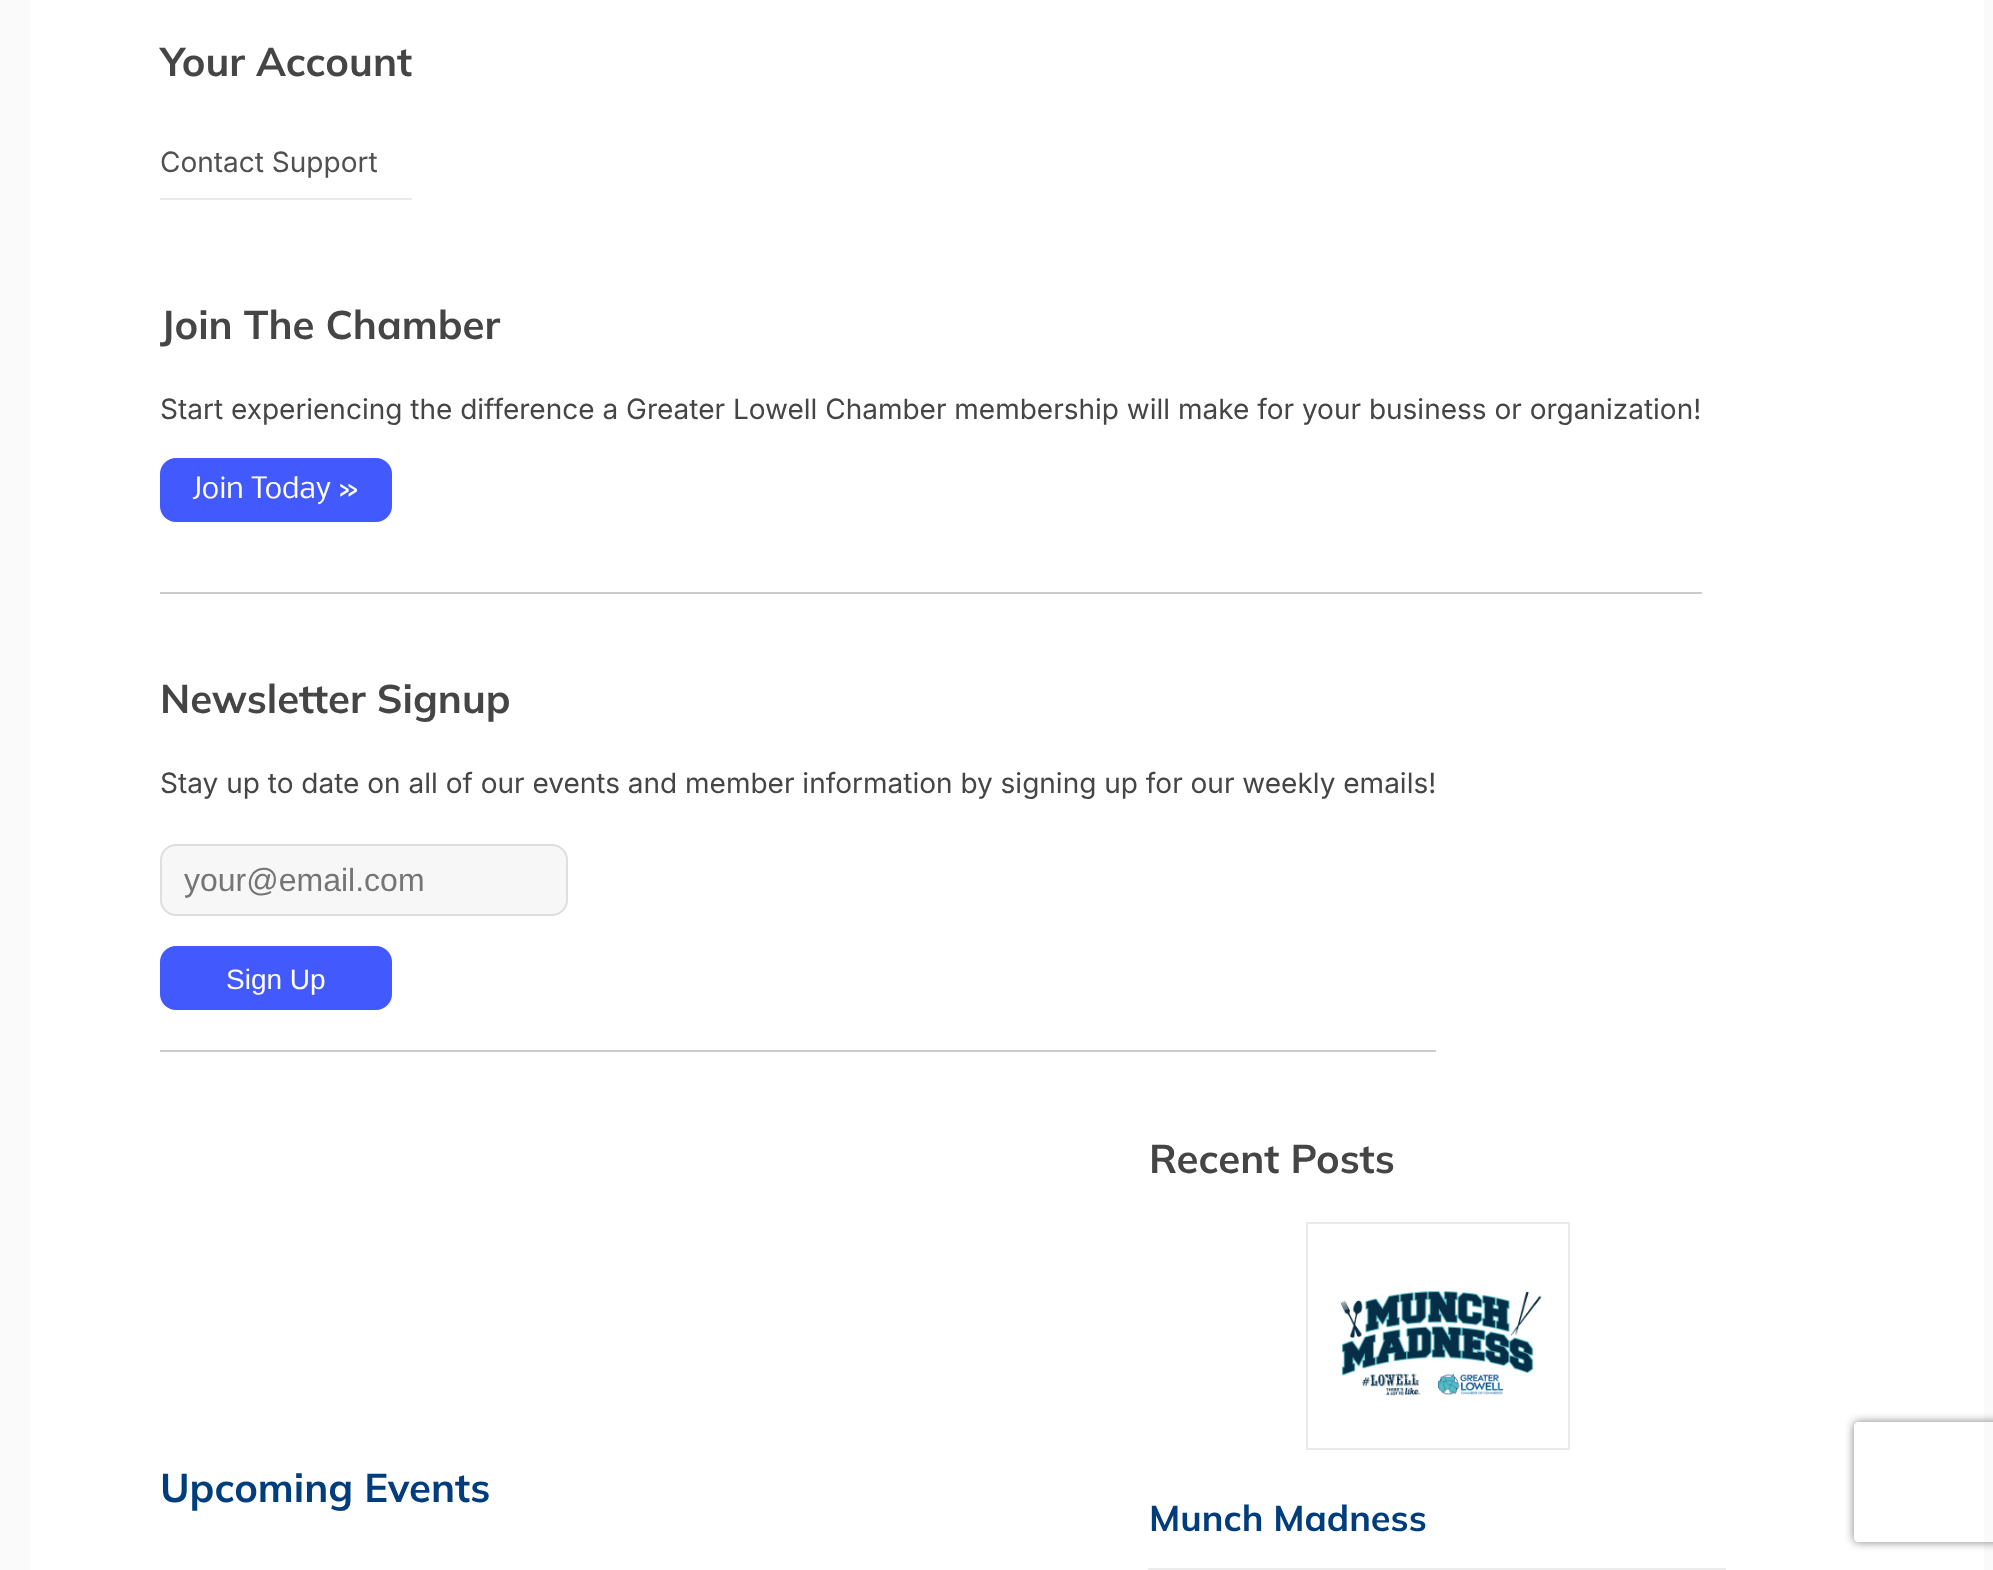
<!DOCTYPE html>
<meta charset="utf-8">
<style>body { margin: 0 } canvas { display: block }</style>
<canvas id="canvas" width="1993" height="1570"></canvas>
<script type="module">
  const canvas = document.getElementById("canvas");
  const g = canvas.getContext("2d");
  g.miterLimit = 4;
  g.fontKerning = "normal";
  function drawText(s, x, y, [font, color]) {
    g.font = font;
    g.fillStyle = color;
    g.fillText(s, x, y);
  }
  function fillBox(x, y, w, h, color) {
    g.fillStyle = color;
    g.fillRect(x, y, w, h);
  }
  function fillRounded(x, y, w, h, r, color) {
    g.fillStyle = color;
    g.beginPath();
    g.roundRect(x, y, w, h, r);
    g.fill();
  }
  async function drawPicture(src, x, y, w, h) {
    const img = new Image();
    img.src = src;
    await img.decode();
    g.drawImage(img, x, y, w, h);
  }

  const s1 = ["bold 40px Mulish", "#454545"];
  const s2 = ["28px Inter", "#505050"];
  const s3 = ["28px Inter", "#454545"];
  const s4 = ["28px Nobile", "#FFFFFF"];
  const s5 = ["32px Liberation Sans", "#757575"];
  const s6 = ["28px Liberation Sans", "#FFFFFF"];
  const s7 = ["bold 40px Mulish", "#003D7D"];
  const s8 = ["bold 36px Mulish", "#003D7D"];

  fillBox(0, 0, 1993, 1570, "#FAFAFB");
  fillBox(30, 0, 1954, 1570, "#FFFFFF");
  drawText("Your Account", 160, 76, s1);
  fillBox(160, 198, 252, 2, "#EAEAEA");
  drawText("Contact Support", 160, 172, s2);
  fillBox(160, 592, 1542, 2, "#CCCCCC");
  drawText("Join The Chamber", 160, 339, s1);
  drawText("Start experiencing the difference a Greater Lowell Chamber membership will make for your business or organization!", 160, 419, s3);
  fillRounded(160, 458, 232, 64, 16, "#4159FD");
  drawText("Join Today »", 192, 498, s4);
  fillBox(160, 1050, 1276, 2, "#CCCCCC");
  drawText("Newsletter Signup", 160, 713, s1);
  drawText("Stay up to date on all of our events and member information by signing up for our weekly emails!", 160, 793, s3);
  g.fillStyle = "#F7F7F7";
  g.beginPath();
  g.roundRect(161, 845, 406, 70, 15);
  g.fill();
  g.strokeStyle = "#DEDEDE";
  g.lineWidth = 2;
  g.stroke();
  drawText("your@email.com", 184, 891, s5);
  fillRounded(160, 946, 232, 64, 16, "#4159FD");
  drawText("Sign Up", 226, 989, s6);
  drawText("Upcoming Events", 160, 1502, s7);
  drawText("Recent Posts", 1149, 1173, s1);
  fillBox(1148, 1568, 578, 2, "#ECECEC");
  g.strokeStyle = "#EAEAEA";
  g.strokeRect(1307, 1223, 262, 226);
  await drawPicture("pic1.png", 1340, 1290, 202, 106);
  drawText("Munch Madness", 1149, 1531, s8);
  g.save();
  g.beginPath();
  g.moveTo(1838, 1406);
  g.lineTo(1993, 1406);
  g.lineTo(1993, 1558);
  g.lineTo(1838, 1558);
  g.closePath();
  g.moveTo(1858, 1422);
  g.lineTo(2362, 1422);
  g.bezierCurveTo(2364, 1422, 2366, 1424, 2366, 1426);
  g.lineTo(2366, 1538);
  g.bezierCurveTo(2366, 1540, 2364, 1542, 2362, 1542);
  g.lineTo(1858, 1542);
  g.bezierCurveTo(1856, 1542, 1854, 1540, 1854, 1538);
  g.lineTo(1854, 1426);
  g.bezierCurveTo(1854, 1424, 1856, 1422, 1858, 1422);
  g.closePath();
  g.clip("evenodd");
  g.fillStyle = "#808080";
  g.filter = "blur(5px)";
  g.beginPath();
  g.roundRect(1854, 1422, 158, 120, 4);
  g.fill();
  g.filter = "none";
  g.restore();
</script>
